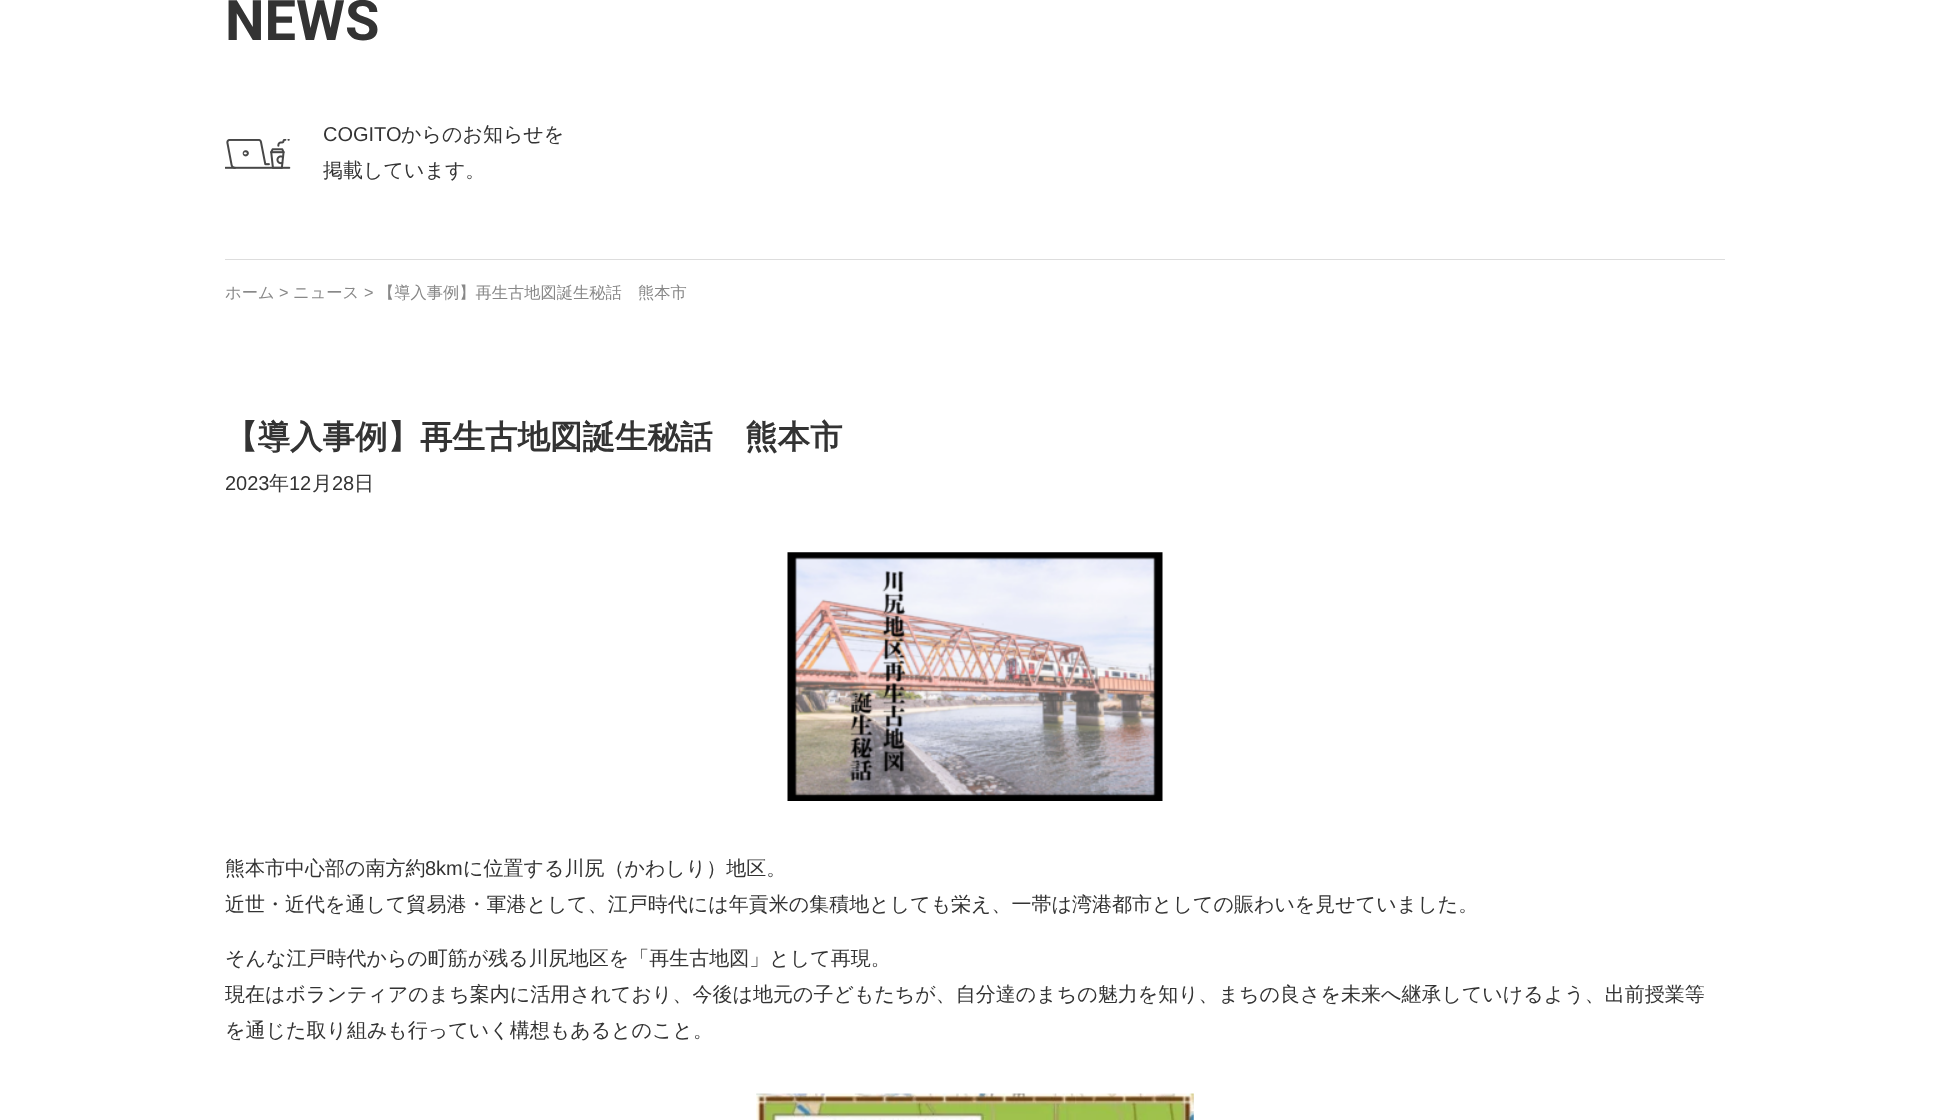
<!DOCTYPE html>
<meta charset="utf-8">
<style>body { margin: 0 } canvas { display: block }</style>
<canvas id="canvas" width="1949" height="1120"></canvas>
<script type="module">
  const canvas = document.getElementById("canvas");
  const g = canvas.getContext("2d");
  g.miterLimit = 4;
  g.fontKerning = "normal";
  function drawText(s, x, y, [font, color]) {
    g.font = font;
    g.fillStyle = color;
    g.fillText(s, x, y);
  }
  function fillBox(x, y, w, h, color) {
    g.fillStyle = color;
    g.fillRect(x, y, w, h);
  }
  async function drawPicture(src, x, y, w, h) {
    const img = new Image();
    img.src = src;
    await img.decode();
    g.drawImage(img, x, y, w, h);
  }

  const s1 = ["bold 56px Roboto", "#333333"];
  const s2 = ["20px Liberation Sans", "#333333"];
  const s3 = ["500 20px WenQuanYi Zen Hei", "#333333"];
  const s4 = ["500 16.25px WenQuanYi Zen Hei", "#888888"];
  const s5 = ["16.25px Liberation Sans", "#888888"];
  const s6 = ["bold 32.5px WenQuanYi Zen Hei", "#333333"];

  fillBox(0, 0, 1949, 1120, "#FFFFFF");
  fillBox(225, 259, 1500, 1, "#DDDDDD");
  drawText("NEWS", 225, 40, s1);
  await drawPicture("pic1.png", 225, 139, 66, 30);
  drawText("COGITO", 323, 141, s2);
  drawText("からのお知らせを", 401, 141, s3);
  drawText("掲載しています。", 323, 177, s3);
  drawText("ホーム", 225, 298, s4);
  drawText(">", 279, 298, s5);
  drawText("ニュース", 293, 298, s4);
  drawText(">", 364, 298, s5);
  drawText("【導入事例】再生古地図誕生秘話　熊本市", 378, 298, s4);
  drawText("【導入事例】再生古地図誕生秘話　熊本市", 225, 448, s6);
  drawText("2023", 225, 490, s2);
  drawText("年", 269, 490, s3);
  drawText("12", 289, 490, s2);
  drawText("月", 312, 490, s3);
  drawText("28", 332, 490, s2);
  drawText("日", 354, 490, s3);
  await drawPicture("pic2.png", 787, 552, 376, 249);
  drawText("熊本市中心部の南方約", 225, 875, s3);
  drawText("8km", 425, 875, s2);
  drawText("に位置する川尻（かわしり）地区。", 463, 875, s3);
  drawText("近世・近代を通して貿易港・軍港として、江戸時代には年貢米の集積地としても栄え、一帯は湾港都市としての賑わいを見せていました。", 225, 911, s3);
  drawText("そんな江戸時代からの町筋が残る川尻地区を「再生古地図」として再現。", 225, 965, s3);
  drawText("現在はボランティアのまち案内に活用されており、今後は地元の子どもたちが、自分達のまちの魅力を知り、まちの良さを未来へ継承していけるよう、出前授業等", 225, 1001, s3);
  drawText("を通じた取り組みも行っていく構想もあるとのこと。", 225, 1037, s3);
  await drawPicture("pic3.png", 756, 1093, 438, 27);
</script>
